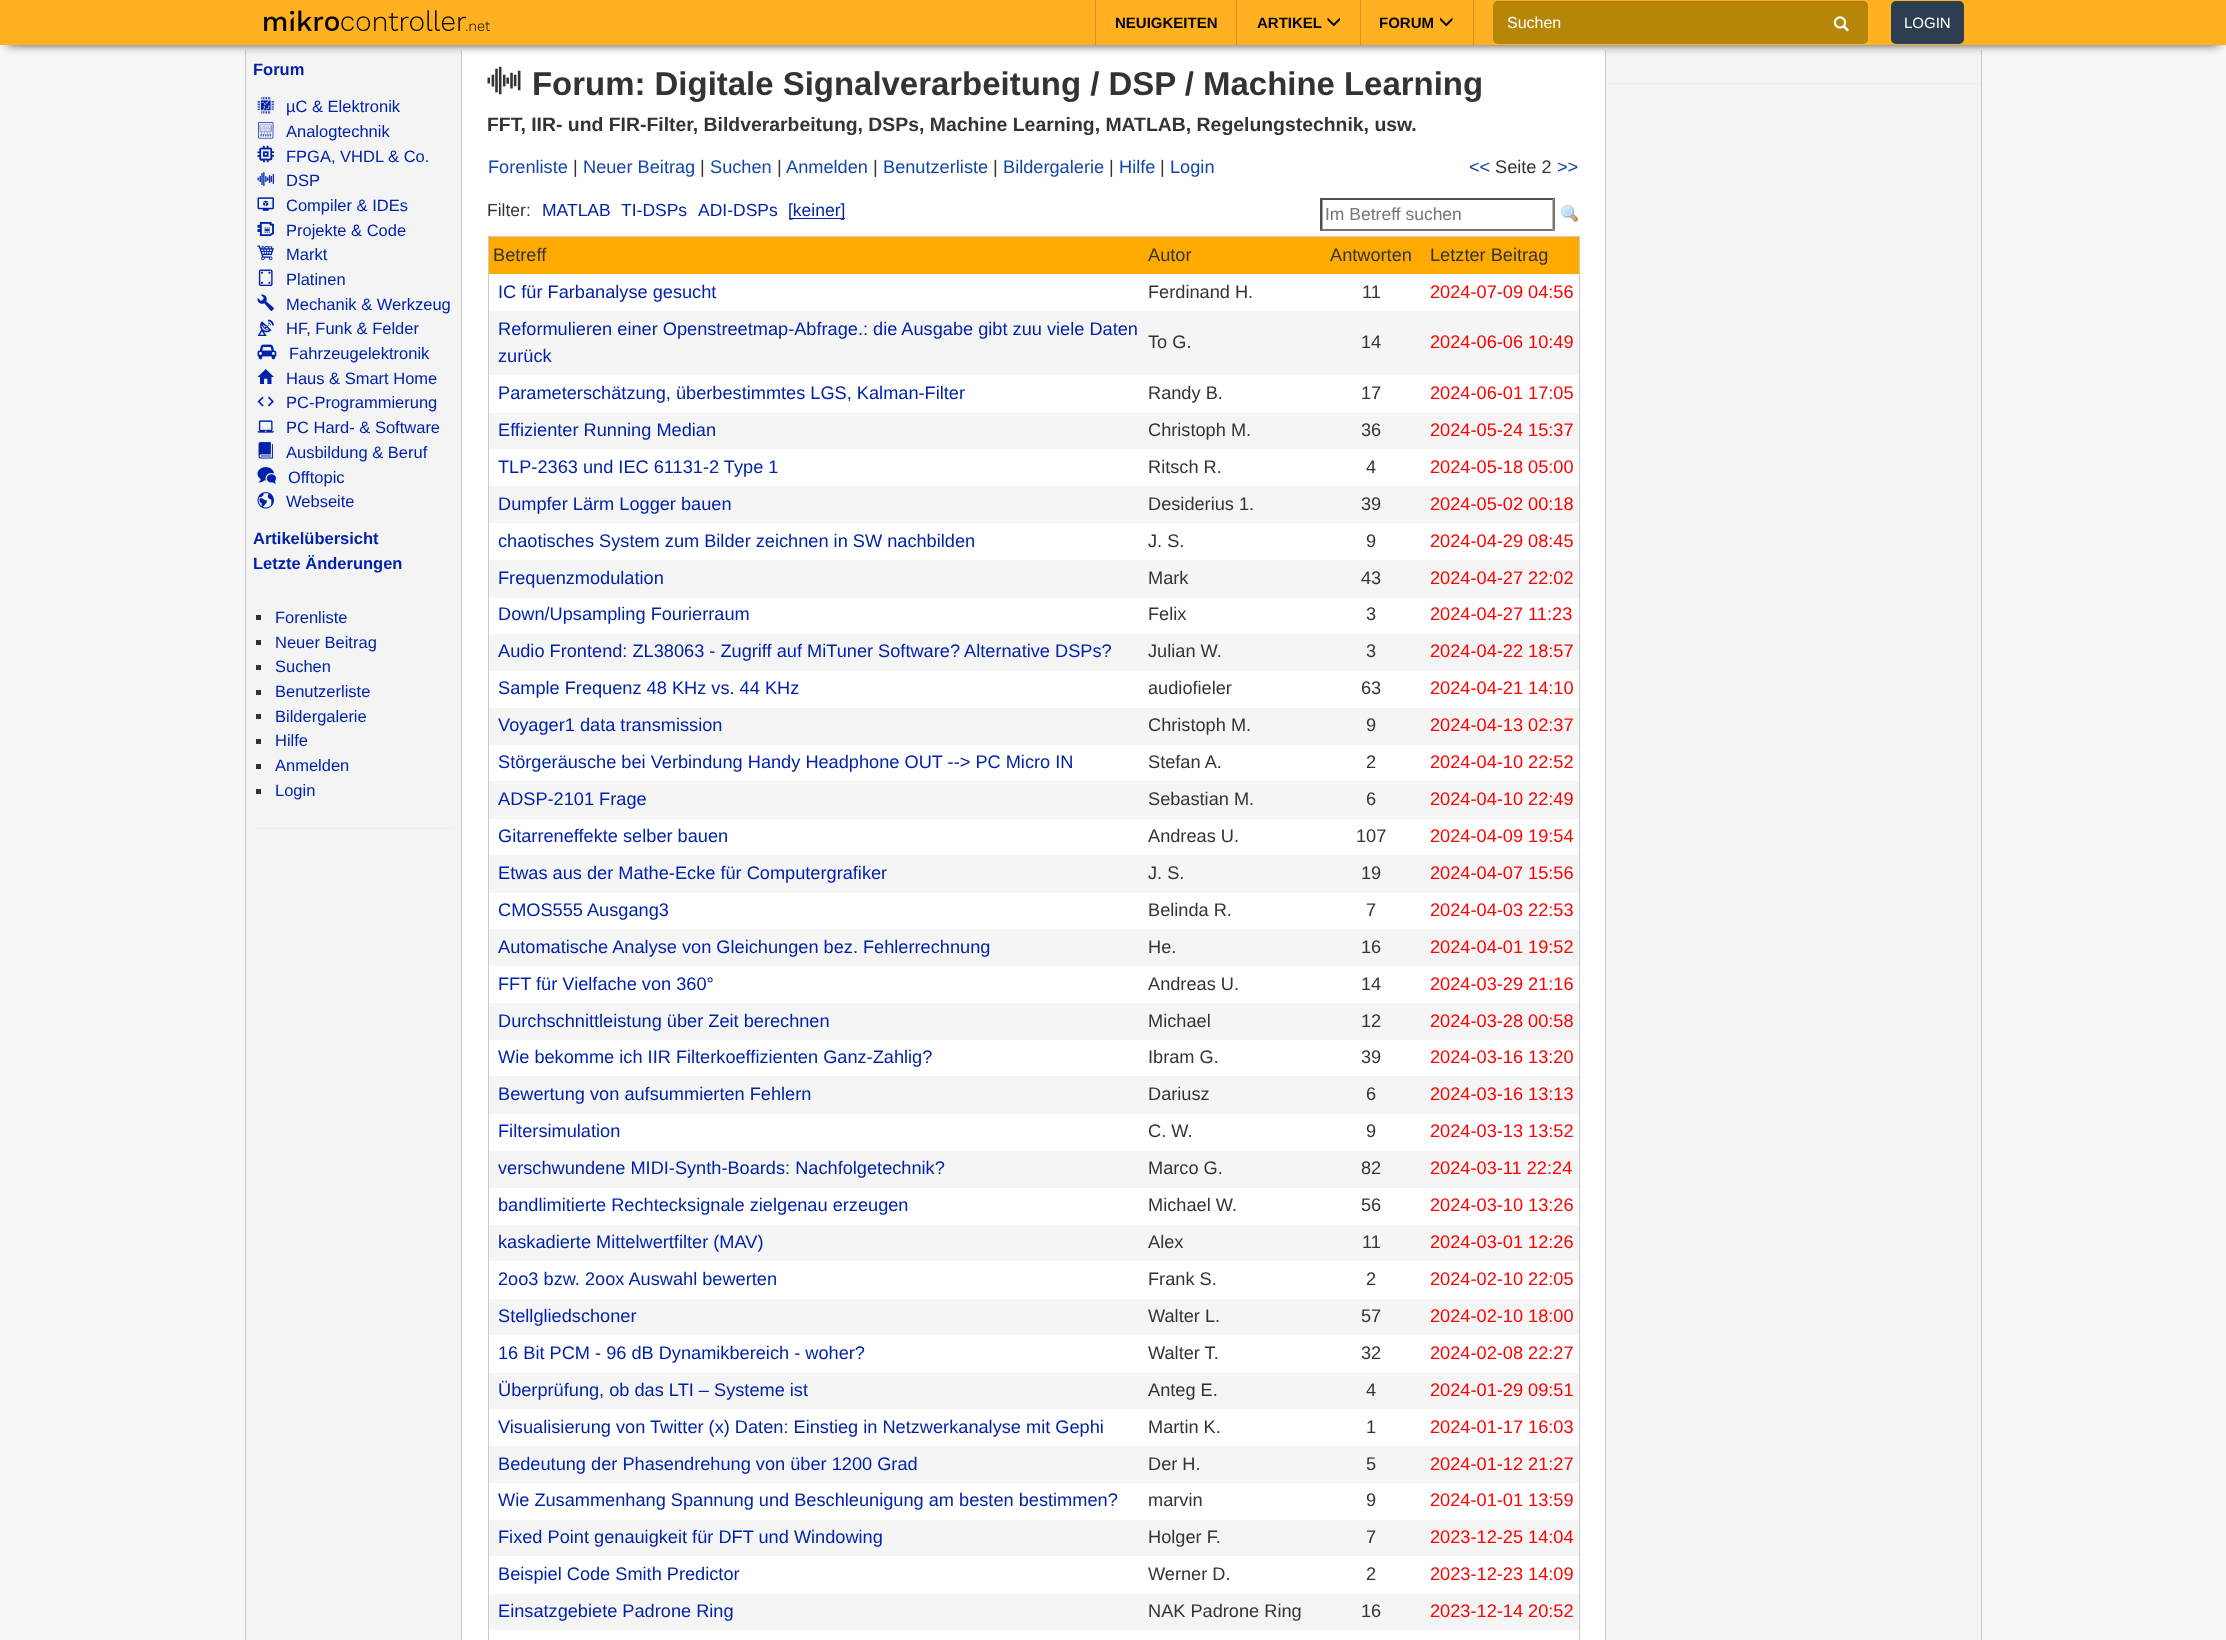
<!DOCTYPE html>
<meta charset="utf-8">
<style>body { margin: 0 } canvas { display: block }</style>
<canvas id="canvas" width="2226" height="1640"></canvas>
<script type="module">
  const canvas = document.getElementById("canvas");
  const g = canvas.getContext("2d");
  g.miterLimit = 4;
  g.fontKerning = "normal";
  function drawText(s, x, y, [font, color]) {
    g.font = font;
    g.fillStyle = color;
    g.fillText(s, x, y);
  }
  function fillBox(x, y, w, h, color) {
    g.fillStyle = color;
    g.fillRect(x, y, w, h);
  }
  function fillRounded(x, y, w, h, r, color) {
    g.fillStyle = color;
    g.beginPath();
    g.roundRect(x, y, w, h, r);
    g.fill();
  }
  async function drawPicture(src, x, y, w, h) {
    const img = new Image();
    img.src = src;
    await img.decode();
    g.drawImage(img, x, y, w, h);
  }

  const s1 = ["bold 15px Liberation Sans", "#000000"];
  const s2 = ["16px Liberation Sans", "#FFFFFF"];
  const s3 = ["15px Liberation Sans", "#FFFFFF"];
  const s4 = ["bold 16.5px Liberation Sans", "#0022AA"];
  const s5 = ["16.5px Liberation Sans", "#0022AA"];
  const s6 = ["bold 32.95px Liberation Sans", "#333333"];
  const s7 = ["bold 19.4px Liberation Sans", "#333333"];
  const s8 = ["18.2px Liberation Sans", "#1047A9"];
  const s9 = ["18.2px Liberation Sans", "#333333"];
  const s10 = ["17.5px Liberation Sans", "#333333"];
  const s11 = ["17.5px Liberation Sans", "#0022AA"];
  const s12 = ["17.5px Liberation Sans", "#757575"];
  const s13 = ["18.2px Liberation Sans", "#0022AA"];
  const s14 = ["18.2px Liberation Sans", "#FF0000"];

  fillBox(0, 0, 2226, 1640, "#F8F8F8");
  fillBox(246, 50, 215, 1590, "#F4F4F4");
  fillBox(461, 50, 1, 1590, "#CACACA");
  fillBox(245, 50, 1, 1590, "#CACACA");
  fillBox(462, 50, 1143, 1590, "#FFFFFF");
  fillBox(1606, 50, 375, 1590, "#F4F4F4");
  fillBox(1981, 50, 1, 1590, "#CACACA");
  fillBox(1605, 50, 1, 1590, "#CACACA");
  g.fillStyle = "#000000";
  g.filter = "blur(6px)";
  g.beginPath();
  g.rect(8, 13, 2211, 30);
  g.fill();
  g.filter = "none";
  fillBox(0, 0, 2226, 45, "#FFB122");
  await drawPicture("pic1.png", 264, 10, 226, 21);
  fillBox(1236, 0, 1, 45, "#D4931C");
  fillBox(1095, 0, 1, 45, "#D4931C");
  drawText("NEUIGKEITEN", 1115, 28, s1);
  fillBox(1360, 0, 1, 45, "#D4931C");
  drawText("ARTIKEL", 1257, 28, s1);
  await drawPicture("pic2.png", 1327, 17, 13, 10);
  fillBox(1473, 0, 1, 45, "#D4931C");
  drawText("FORUM", 1379, 28, s1);
  await drawPicture("pic3.png", 1440, 17, 13, 10);
  fillRounded(1493, 1, 375, 43, 5, "#B78508");
  g.fillStyle = "rgba(0, 0, 0, 0.07)";
  g.beginPath();
  g.moveTo(1498, 2);
  g.lineTo(1862, 2);
  g.bezierCurveTo(1865, 2, 1868, 5, 1868, 8);
  g.lineTo(1868, 6);
  g.bezierCurveTo(1868, 3, 1866, 1, 1863, 1);
  g.lineTo(1498, 1);
  g.bezierCurveTo(1496, 1, 1494, 3, 1493, 5);
  g.bezierCurveTo(1494, 3, 1496, 2, 1498, 2);
  g.closePath();
  g.fill();
  drawText("Suchen", 1507, 28, s2);
  await drawPicture("pic4.png", 1833, 16, 16, 16);
  fillRounded(1891, 1, 73, 43, 5, "#2C3E50");
  drawText("LOGIN", 1904, 28, s3);
  drawText("Forum", 253, 75, s4);
  await drawPicture("pic5.png", 257, 97, 17, 17);
  drawText("µC & Elektronik", 286, 112, s5);
  await drawPicture("pic6.png", 258, 122, 16, 17);
  drawText("Analogtechnik", 286, 137, s5);
  await drawPicture("pic7.png", 257, 145, 17, 18);
  drawText("FPGA, VHDL & Co.", 286, 162, s5);
  await drawPicture("pic8.png", 257, 172, 17, 14);
  drawText("DSP", 286, 186, s5);
  await drawPicture("pic9.png", 257, 197, 17, 14);
  drawText("Compiler & IDEs", 286, 211, s5);
  await drawPicture("pic10.png", 257, 222, 17, 15);
  drawText("Projekte & Code", 286, 236, s5);
  await drawPicture("pic11.png", 257, 245, 17, 15);
  drawText("Markt", 286, 260, s5);
  await drawPicture("pic12.png", 258, 269, 15, 17);
  drawText("Platinen", 286, 285, s5);
  await drawPicture("pic13.png", 257, 294, 17, 17);
  drawText("Mechanik & Werkzeug", 286, 310, s5);
  await drawPicture("pic14.png", 257, 319, 17, 17);
  drawText("HF, Funk & Felder", 286, 334, s5);
  await drawPicture("pic15.png", 257, 344, 20, 16);
  drawText("Fahrzeugelektronik", 289, 359, s5);
  await drawPicture("pic16.png", 257, 369, 17, 15);
  drawText("Haus & Smart Home", 286, 384, s5);
  await drawPicture("pic17.png", 257, 396, 17, 11);
  drawText("PC-Programmierung", 286, 408, s5);
  await drawPicture("pic18.png", 257, 420, 17, 13);
  drawText("PC Hard- & Software", 286, 433, s5);
  await drawPicture("pic19.png", 258, 442, 15, 17);
  drawText("Ausbildung & Beruf", 286, 458, s5);
  await drawPicture("pic20.png", 257, 467, 19, 17);
  drawText("Offtopic", 288, 483, s5);
  await drawPicture("pic21.png", 257, 492, 17, 17);
  drawText("Webseite", 286, 507, s5);
  drawText("Artikelübersicht", 253, 544, s4);
  drawText("Letzte Änderungen", 253, 569, s4);
  fillBox(256, 615, 5, 5, "#333333");
  drawText("Forenliste", 275, 623, s5);
  fillBox(256, 640, 5, 5, "#333333");
  drawText("Neuer Beitrag", 275, 648, s5);
  fillBox(256, 665, 5, 5, "#333333");
  drawText("Suchen", 275, 672, s5);
  fillBox(256, 690, 5, 5, "#333333");
  drawText("Benutzerliste", 275, 697, s5);
  fillBox(256, 714, 5, 5, "#333333");
  drawText("Bildergalerie", 275, 722, s5);
  fillBox(256, 739, 5, 5, "#333333");
  drawText("Hilfe", 275, 746, s5);
  fillBox(256, 764, 5, 5, "#333333");
  drawText("Anmelden", 275, 771, s5);
  fillBox(256, 789, 5, 5, "#333333");
  drawText("Login", 275, 796, s5);
  fillBox(254, 828, 200, 1, "#EEEEEE");
  await drawPicture("pic22.png", 487, 66, 34, 29);
  drawText("Forum: Digitale Signalverarbeitung / DSP / Machine Learning", 532, 95, s6);
  drawText("FFT, IIR- und FIR-Filter, Bildverarbeitung, DSPs, Machine Learning, MATLAB, Regelungstechnik, usw.", 487, 131, s7);
  drawText("Forenliste", 488, 173, s8);
  drawText("|", 573, 173, s9);
  drawText("Neuer Beitrag", 583, 173, s8);
  drawText("|", 700, 173, s9);
  drawText("Suchen", 710, 173, s8);
  drawText("|", 777, 173, s9);
  drawText("Anmelden", 786, 173, s8);
  drawText("|", 873, 173, s9);
  drawText("Benutzerliste", 883, 173, s8);
  drawText("|", 993, 173, s9);
  drawText("Bildergalerie", 1003, 173, s8);
  drawText("|", 1109, 173, s9);
  drawText("Hilfe", 1119, 173, s8);
  drawText("|", 1160, 173, s9);
  drawText("Login", 1170, 173, s8);
  drawText("<<", 1469, 173, s8);
  drawText("Seite 2", 1495, 173, s9);
  drawText(">>", 1557, 173, s8);
  drawText("Filter:", 487, 216, s10);
  drawText("MATLAB", 542, 216, s11);
  drawText("TI-DSPs", 621, 216, s11);
  drawText("ADI-DSPs", 698, 216, s11);
  fillBox(789, 218, 56, 1, "#0022AA");
  drawText("[keiner]", 788, 216, s11);
  g.fillStyle = "#4F4F4F";
  g.beginPath();
  g.moveTo(1320, 198);
  g.lineTo(1555, 198);
  g.lineTo(1552, 200);
  g.lineTo(1322, 200);
  g.closePath();
  g.fill();
  g.fillStyle = "#767676";
  g.beginPath();
  g.moveTo(1555, 197.5);
  g.lineTo(1555, 231);
  g.lineTo(1552.5, 229);
  g.lineTo(1552.5, 200);
  g.closePath();
  g.fill();
  g.beginPath();
  g.moveTo(1555, 231);
  g.lineTo(1320, 231);
  g.lineTo(1322, 229);
  g.lineTo(1552, 229);
  g.closePath();
  g.fill();
  g.fillStyle = "#4F4F4F";
  g.beginPath();
  g.moveTo(1320, 231);
  g.lineTo(1320, 197.5);
  g.lineTo(1322.5, 200);
  g.lineTo(1322.5, 229);
  g.closePath();
  g.fill();
  drawText("Im Betreff suchen", 1325, 220, s12);
  await drawPicture("pic23.png", 1561, 204, 17, 19);
  fillBox(488, 236, 1092, 1, "#CACACA");
  fillBox(1579, 236, 1, 1404, "#CACACA");
  fillBox(488, 236, 1, 1404, "#CACACA");
  fillBox(489, 237, 1090, 37, "#FFAA00");
  drawText("Betreff", 493, 261, s9);
  drawText("Autor", 1148, 261, s9);
  drawText("Antworten", 1330, 261, s9);
  drawText("Letzter Beitrag", 1430, 261, s9);
  drawText("IC für Farbanalyse gesucht", 498, 298, s13);
  drawText("Ferdinand H.", 1148, 298, s9);
  drawText("11", 1362, 298, s9);
  drawText("2024-07-09 04:56", 1430, 298, s14);
  fillBox(489, 311, 655, 64, "#F5F5F5");
  drawText("Reformulieren einer Openstreetmap-Abfrage.: die Ausgabe gibt zuu viele Daten", 498, 335, s13);
  drawText("zurück", 498, 362, s13);
  fillBox(1144, 311, 181, 64, "#F5F5F5");
  drawText("To G.", 1148, 348, s9);
  fillBox(1325, 311, 254, 64, "#F5F5F5");
  drawText("14", 1361, 348, s9);
  drawText("2024-06-06 10:49", 1430, 348, s14);
  drawText("Parameterschätzung, überbestimmtes LGS, Kalman-Filter", 498, 399, s13);
  drawText("Randy B.", 1148, 399, s9);
  drawText("17", 1361, 399, s9);
  drawText("2024-06-01 17:05", 1430, 399, s14);
  fillBox(489, 413, 655, 36, "#F5F5F5");
  drawText("Effizienter Running Median", 498, 436, s13);
  fillBox(1144, 413, 181, 36, "#F5F5F5");
  drawText("Christoph M.", 1148, 436, s9);
  fillBox(1325, 413, 254, 36, "#F5F5F5");
  drawText("36", 1361, 436, s9);
  drawText("2024-05-24 15:37", 1430, 436, s14);
  drawText("TLP-2363 und IEC 61131-2 Type 1", 498, 473, s13);
  drawText("Ritsch R.", 1148, 473, s9);
  drawText("4", 1366, 473, s9);
  drawText("2024-05-18 05:00", 1430, 473, s14);
  fillBox(489, 486, 655, 37, "#F5F5F5");
  drawText("Dumpfer Lärm Logger bauen", 498, 510, s13);
  fillBox(1144, 486, 181, 37, "#F5F5F5");
  drawText("Desiderius 1.", 1148, 510, s9);
  fillBox(1325, 486, 254, 37, "#F5F5F5");
  drawText("39", 1361, 510, s9);
  drawText("2024-05-02 00:18", 1430, 510, s14);
  drawText("chaotisches System zum Bilder zeichnen in SW nachbilden", 498, 547, s13);
  drawText("J. S.", 1148, 547, s9);
  drawText("9", 1366, 547, s9);
  drawText("2024-04-29 08:45", 1430, 547, s14);
  fillBox(489, 560, 655, 38, "#F5F5F5");
  drawText("Frequenzmodulation", 498, 584, s13);
  fillBox(1144, 560, 181, 38, "#F5F5F5");
  drawText("Mark", 1148, 584, s9);
  fillBox(1325, 560, 254, 38, "#F5F5F5");
  drawText("43", 1361, 584, s9);
  drawText("2024-04-27 22:02", 1430, 584, s14);
  drawText("Down/Upsampling Fourierraum", 498, 620, s13);
  drawText("Felix", 1148, 620, s9);
  drawText("3", 1366, 620, s9);
  drawText("2024-04-27 11:23", 1430, 620, s14);
  fillBox(489, 634, 655, 37, "#F5F5F5");
  drawText("Audio Frontend: ZL38063 - Zugriff auf MiTuner Software? Alternative DSPs?", 498, 657, s13);
  fillBox(1144, 634, 181, 37, "#F5F5F5");
  drawText("Julian W.", 1148, 657, s9);
  fillBox(1325, 634, 254, 37, "#F5F5F5");
  drawText("3", 1366, 657, s9);
  drawText("2024-04-22 18:57", 1430, 657, s14);
  drawText("Sample Frequenz 48 KHz vs. 44 KHz", 498, 694, s13);
  drawText("audiofieler", 1148, 694, s9);
  drawText("63", 1361, 694, s9);
  drawText("2024-04-21 14:10", 1430, 694, s14);
  fillBox(489, 708, 655, 37, "#F5F5F5");
  drawText("Voyager1 data transmission", 498, 731, s13);
  fillBox(1144, 708, 181, 37, "#F5F5F5");
  drawText("Christoph M.", 1148, 731, s9);
  fillBox(1325, 708, 254, 37, "#F5F5F5");
  drawText("9", 1366, 731, s9);
  drawText("2024-04-13 02:37", 1430, 731, s14);
  drawText("Störgeräusche bei Verbindung Handy Headphone OUT --> PC Micro IN", 498, 768, s13);
  drawText("Stefan A.", 1148, 768, s9);
  drawText("2", 1366, 768, s9);
  drawText("2024-04-10 22:52", 1430, 768, s14);
  fillBox(489, 781, 655, 38, "#F5F5F5");
  drawText("ADSP-2101 Frage", 498, 805, s13);
  fillBox(1144, 781, 181, 38, "#F5F5F5");
  drawText("Sebastian M.", 1148, 805, s9);
  fillBox(1325, 781, 254, 38, "#F5F5F5");
  drawText("6", 1366, 805, s9);
  drawText("2024-04-10 22:49", 1430, 805, s14);
  drawText("Gitarreneffekte selber bauen", 498, 842, s13);
  drawText("Andreas U.", 1148, 842, s9);
  drawText("107", 1356, 842, s9);
  drawText("2024-04-09 19:54", 1430, 842, s14);
  fillBox(489, 855, 655, 38, "#F5F5F5");
  drawText("Etwas aus der Mathe-Ecke für Computergrafiker", 498, 879, s13);
  fillBox(1144, 855, 181, 38, "#F5F5F5");
  drawText("J. S.", 1148, 879, s9);
  fillBox(1325, 855, 254, 38, "#F5F5F5");
  drawText("19", 1361, 879, s9);
  drawText("2024-04-07 15:56", 1430, 879, s14);
  drawText("CMOS555 Ausgang3", 498, 916, s13);
  drawText("Belinda R.", 1148, 916, s9);
  drawText("7", 1366, 916, s9);
  drawText("2024-04-03 22:53", 1430, 916, s14);
  fillBox(489, 929, 655, 37, "#F5F5F5");
  drawText("Automatische Analyse von Gleichungen bez. Fehlerrechnung", 498, 953, s13);
  fillBox(1144, 929, 181, 37, "#F5F5F5");
  drawText("He.", 1148, 953, s9);
  fillBox(1325, 929, 254, 37, "#F5F5F5");
  drawText("16", 1361, 953, s9);
  drawText("2024-04-01 19:52", 1430, 953, s14);
  drawText("FFT für Vielfache von 360°", 498, 990, s13);
  drawText("Andreas U.", 1148, 990, s9);
  drawText("14", 1361, 990, s9);
  drawText("2024-03-29 21:16", 1430, 990, s14);
  fillBox(489, 1003, 655, 37, "#F5F5F5");
  drawText("Durchschnittleistung über Zeit berechnen", 498, 1027, s13);
  fillBox(1144, 1003, 181, 37, "#F5F5F5");
  drawText("Michael", 1148, 1027, s9);
  fillBox(1325, 1003, 254, 37, "#F5F5F5");
  drawText("12", 1361, 1027, s9);
  drawText("2024-03-28 00:58", 1430, 1027, s14);
  drawText("Wie bekomme ich IIR Filterkoeffizienten Ganz-Zahlig?", 498, 1063, s13);
  drawText("Ibram G.", 1148, 1063, s9);
  drawText("39", 1361, 1063, s9);
  drawText("2024-03-16 13:20", 1430, 1063, s14);
  fillBox(489, 1076, 655, 38, "#F5F5F5");
  drawText("Bewertung von aufsummierten Fehlern", 498, 1100, s13);
  fillBox(1144, 1076, 181, 38, "#F5F5F5");
  drawText("Dariusz", 1148, 1100, s9);
  fillBox(1325, 1076, 254, 38, "#F5F5F5");
  drawText("6", 1366, 1100, s9);
  drawText("2024-03-16 13:13", 1430, 1100, s14);
  drawText("Filtersimulation", 498, 1137, s13);
  drawText("C. W.", 1148, 1137, s9);
  drawText("9", 1366, 1137, s9);
  drawText("2024-03-13 13:52", 1430, 1137, s14);
  fillBox(489, 1151, 655, 37, "#F5F5F5");
  drawText("verschwundene MIDI-Synth-Boards: Nachfolgetechnik?", 498, 1174, s13);
  fillBox(1144, 1151, 181, 37, "#F5F5F5");
  drawText("Marco G.", 1148, 1174, s9);
  fillBox(1325, 1151, 254, 37, "#F5F5F5");
  drawText("82", 1361, 1174, s9);
  drawText("2024-03-11 22:24", 1430, 1174, s14);
  drawText("bandlimitierte Rechtecksignale zielgenau erzeugen", 498, 1211, s13);
  drawText("Michael W.", 1148, 1211, s9);
  drawText("56", 1361, 1211, s9);
  drawText("2024-03-10 13:26", 1430, 1211, s14);
  fillBox(489, 1225, 655, 36, "#F5F5F5");
  drawText("kaskadierte Mittelwertfilter (MAV)", 498, 1248, s13);
  fillBox(1144, 1225, 181, 36, "#F5F5F5");
  drawText("Alex", 1148, 1248, s9);
  fillBox(1325, 1225, 254, 36, "#F5F5F5");
  drawText("11", 1362, 1248, s9);
  drawText("2024-03-01 12:26", 1430, 1248, s14);
  drawText("2oo3 bzw. 2oox Auswahl bewerten", 498, 1285, s13);
  drawText("Frank S.", 1148, 1285, s9);
  drawText("2", 1366, 1285, s9);
  drawText("2024-02-10 22:05", 1430, 1285, s14);
  fillBox(489, 1299, 655, 36, "#F5F5F5");
  drawText("Stellgliedschoner", 498, 1322, s13);
  fillBox(1144, 1299, 181, 36, "#F5F5F5");
  drawText("Walter L.", 1148, 1322, s9);
  fillBox(1325, 1299, 254, 36, "#F5F5F5");
  drawText("57", 1361, 1322, s9);
  drawText("2024-02-10 18:00", 1430, 1322, s14);
  drawText("16 Bit PCM - 96 dB Dynamikbereich - woher?", 498, 1359, s13);
  drawText("Walter T.", 1148, 1359, s9);
  drawText("32", 1361, 1359, s9);
  drawText("2024-02-08 22:27", 1430, 1359, s14);
  fillBox(489, 1373, 655, 36, "#F5F5F5");
  drawText("Überprüfung, ob das LTI – Systeme ist", 498, 1396, s13);
  fillBox(1144, 1373, 181, 36, "#F5F5F5");
  drawText("Anteg E.", 1148, 1396, s9);
  fillBox(1325, 1373, 254, 36, "#F5F5F5");
  drawText("4", 1366, 1396, s9);
  drawText("2024-01-29 09:51", 1430, 1396, s14);
  drawText("Visualisierung von Twitter (x) Daten: Einstieg in Netzwerkanalyse mit Gephi", 498, 1433, s13);
  drawText("Martin K.", 1148, 1433, s9);
  drawText("1", 1366, 1433, s9);
  drawText("2024-01-17 16:03", 1430, 1433, s14);
  fillBox(489, 1446, 655, 37, "#F5F5F5");
  drawText("Bedeutung der Phasendrehung von über 1200 Grad", 498, 1470, s13);
  fillBox(1144, 1446, 181, 37, "#F5F5F5");
  drawText("Der H.", 1148, 1470, s9);
  fillBox(1325, 1446, 254, 37, "#F5F5F5");
  drawText("5", 1366, 1470, s9);
  drawText("2024-01-12 21:27", 1430, 1470, s14);
  drawText("Wie Zusammenhang Spannung und Beschleunigung am besten bestimmen?", 498, 1506, s13);
  drawText("marvin", 1148, 1506, s9);
  drawText("9", 1366, 1506, s9);
  drawText("2024-01-01 13:59", 1430, 1506, s14);
  fillBox(489, 1520, 655, 36, "#F5F5F5");
  drawText("Fixed Point genauigkeit für DFT und Windowing", 498, 1543, s13);
  fillBox(1144, 1520, 181, 36, "#F5F5F5");
  drawText("Holger F.", 1148, 1543, s9);
  fillBox(1325, 1520, 254, 36, "#F5F5F5");
  drawText("7", 1366, 1543, s9);
  drawText("2023-12-25 14:04", 1430, 1543, s14);
  drawText("Beispiel Code Smith Predictor", 498, 1580, s13);
  drawText("Werner D.", 1148, 1580, s9);
  drawText("2", 1366, 1580, s9);
  drawText("2023-12-23 14:09", 1430, 1580, s14);
  fillBox(489, 1594, 655, 36, "#F5F5F5");
  drawText("Einsatzgebiete Padrone Ring", 498, 1617, s13);
  fillBox(1144, 1594, 181, 36, "#F5F5F5");
  drawText("NAK Padrone Ring", 1148, 1617, s9);
  fillBox(1325, 1594, 254, 36, "#F5F5F5");
  drawText("16", 1361, 1617, s9);
  drawText("2023-12-14 20:52", 1430, 1617, s14);
  fillBox(1606, 83, 375, 1, "#EEEEEE");
</script>
